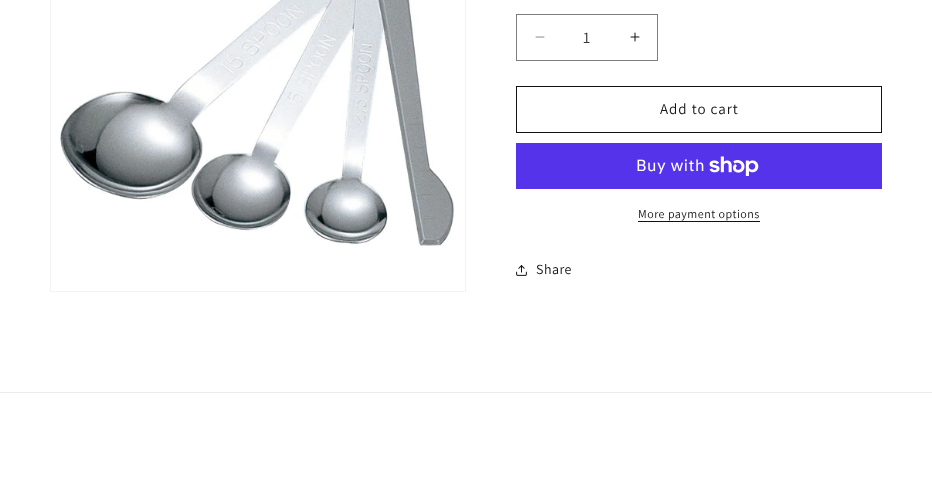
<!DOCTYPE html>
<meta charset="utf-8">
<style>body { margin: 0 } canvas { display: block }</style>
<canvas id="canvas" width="932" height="496"></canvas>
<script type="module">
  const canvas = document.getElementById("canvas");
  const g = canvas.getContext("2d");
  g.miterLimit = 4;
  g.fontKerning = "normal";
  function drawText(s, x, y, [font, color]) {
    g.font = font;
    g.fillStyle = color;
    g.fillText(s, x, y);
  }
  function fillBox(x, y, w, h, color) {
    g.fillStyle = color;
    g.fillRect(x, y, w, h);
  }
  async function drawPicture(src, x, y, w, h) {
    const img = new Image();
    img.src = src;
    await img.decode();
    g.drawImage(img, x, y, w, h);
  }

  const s1 = ["16px Assistant", "#363636"];
  const s2 = ["15px Assistant", "#121212"];
  const s3 = ["16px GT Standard", "#FFFFFF"];
  const s4 = ["12px Assistant", "#121212"];
  const s5 = ["14px Assistant", "#121212"];

  fillBox(0, 0, 932, 496, "#FFFFFF");
  g.strokeStyle = "#F3F3F3";
  g.strokeRect(50.5, -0.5, 415, 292);
  await drawPicture("pic1.png", 60, 0, 394, 246);
  await drawPicture("pic2.png", 535, 36, 10, 2);
  await drawPicture("pic3.png", 630, 32, 10, 10);
  g.strokeStyle = "#7D7D7D";
  g.strokeRect(516.5, 14.5, 141, 46);
  drawText("1", 583, 43, s1);
  g.strokeStyle = "#121212";
  g.strokeRect(516.5, 86.5, 365, 46);
  g.letterSpacing = "1px";
  drawText("Add to cart", 660, 114, s2);
  fillBox(516, 143, 366, 46, "#5433EB");
  g.letterSpacing = "0.5px";
  drawText("Buy with", 636, 171, s3);
  await drawPicture("pic4.png", 709, 156, 50, 20);
  drawText("More payment options", 638, 218, s4);
  fillBox(638, 221, 122, 1, "#121212");
  await drawPicture("pic5.png", 516, 265, 11, 11);
  drawText("Share", 536, 274, s5);
  fillBox(0, 392, 932, 1, "#ECECEC");
</script>
